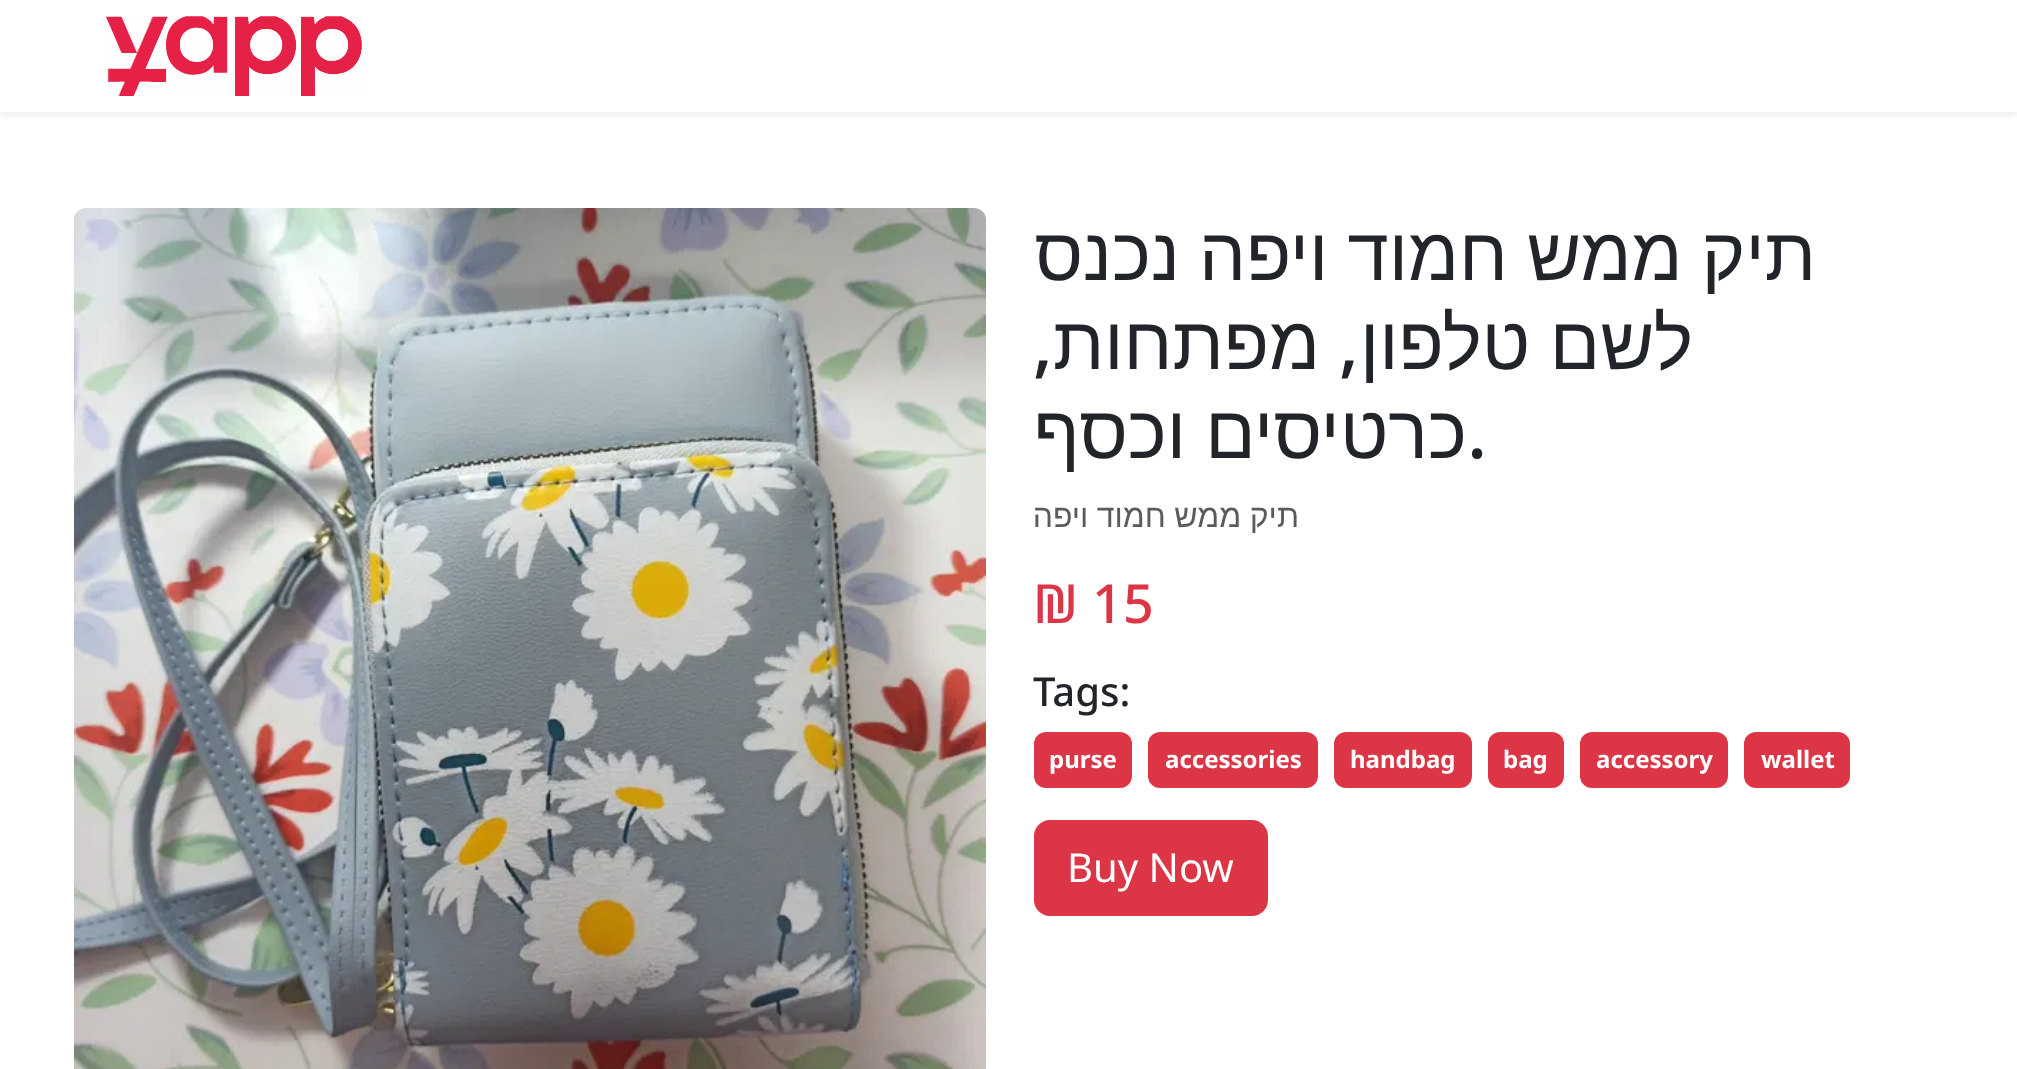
<!DOCTYPE html>
<meta charset="utf-8">
<style>body { margin: 0 } canvas { display: block }</style>
<canvas id="canvas" width="2017" height="1069"></canvas>
<script type="module">
  const canvas = document.getElementById("canvas");
  const g = canvas.getContext("2d");
  g.miterLimit = 4;
  g.fontKerning = "normal";
  function drawText(s, x, y, [font, color]) {
    g.font = font;
    g.fillStyle = color;
    g.fillText(s, x, y);
  }
  function fillBox(x, y, w, h, color) {
    g.fillStyle = color;
    g.fillRect(x, y, w, h);
  }
  function fillRounded(x, y, w, h, r, color) {
    g.fillStyle = color;
    g.beginPath();
    g.roundRect(x, y, w, h, r);
    g.fill();
  }
  async function drawPicture(src, x, y, w, h) {
    const img = new Image();
    img.src = src;
    await img.decode();
    g.drawImage(img, x, y, w, h);
  }

  const s1 = ["74.25px Liberation Sans", "#212529"];
  const s2 = ["500 74.25px Noto Sans", "#212529"];
  const s3 = ["32px Liberation Sans", "#595C5F"];
  const s4 = ["500 54px Noto Sans", "#DC3545"];
  const s5 = ["500 40px Noto Sans", "#212529"];
  const s6 = ["bold 24px Noto Sans", "#FFFFFF"];
  const s7 = ["40px Noto Sans", "#FFFFFF"];

  fillBox(0, 0, 2017, 1069, "#FFFFFF");
  g.save();
  g.beginPath();
  g.rect(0, 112, 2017, 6);
  g.clip();
  g.fillStyle = "rgba(0, 0, 0, 0.07)";
  g.filter = "blur(4px)";
  g.beginPath();
  g.rect(0, 4, 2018, 112);
  g.fill();
  g.filter = "none";
  g.restore();
  await drawPicture("pic1.png", 106, 16, 257, 80);
  g.wordSpacing = "-1.5px";
  g.direction = "rtl";
  drawText("תיק ממש חמוד ויפה נכנס", 1816, 280, s1);
  g.wordSpacing = "-1px";
  drawText("לשם טלפון", 1693, 369, s1);
  g.wordSpacing = "0px";
  drawText(",", 1359, 369, s2);
  drawText("מפתחות", 1320, 369, s1);
  drawText(",", 1053, 369, s2);
  g.direction = "ltr";
  drawText(".", 1467, 458, s2);
  g.wordSpacing = "-1.5px";
  g.direction = "rtl";
  drawText("כרטיסים וכסף", 1467, 458, s1);
  g.wordSpacing = "-0.5px";
  drawText("תיק ממש חמוד ויפה", 1299, 527, s3);
  g.wordSpacing = "0px";
  g.direction = "ltr";
  drawText("₪ 15", 1033, 623, s4);
  drawText("Tags:", 1033, 706, s5);
  fillRounded(1744, 732, 106, 56, 12, "#DC3545");
  drawText("wallet", 1761, 768, s6);
  fillRounded(1580, 732, 148, 56, 12, "#DC3545");
  drawText("accessory", 1596, 768, s6);
  fillRounded(1488, 732, 76, 56, 12, "#DC3545");
  drawText("bag", 1503, 768, s6);
  fillRounded(1334, 732, 138, 56, 12, "#DC3545");
  drawText("handbag", 1350, 768, s6);
  fillRounded(1148, 732, 170, 56, 12, "#DC3545");
  drawText("accessories", 1165, 768, s6);
  fillRounded(1034, 732, 98, 56, 12, "#DC3545");
  drawText("purse", 1049, 768, s6);
  g.fillStyle = "#DC3545";
  g.beginPath();
  g.roundRect(1035, 821, 232, 94, 15);
  g.fill();
  g.strokeStyle = "#DC3545";
  g.lineWidth = 2;
  g.stroke();
  drawText("Buy Now", 1067, 882, s7);
  await drawPicture("pic2.png", 74, 208, 912, 861);
</script>
